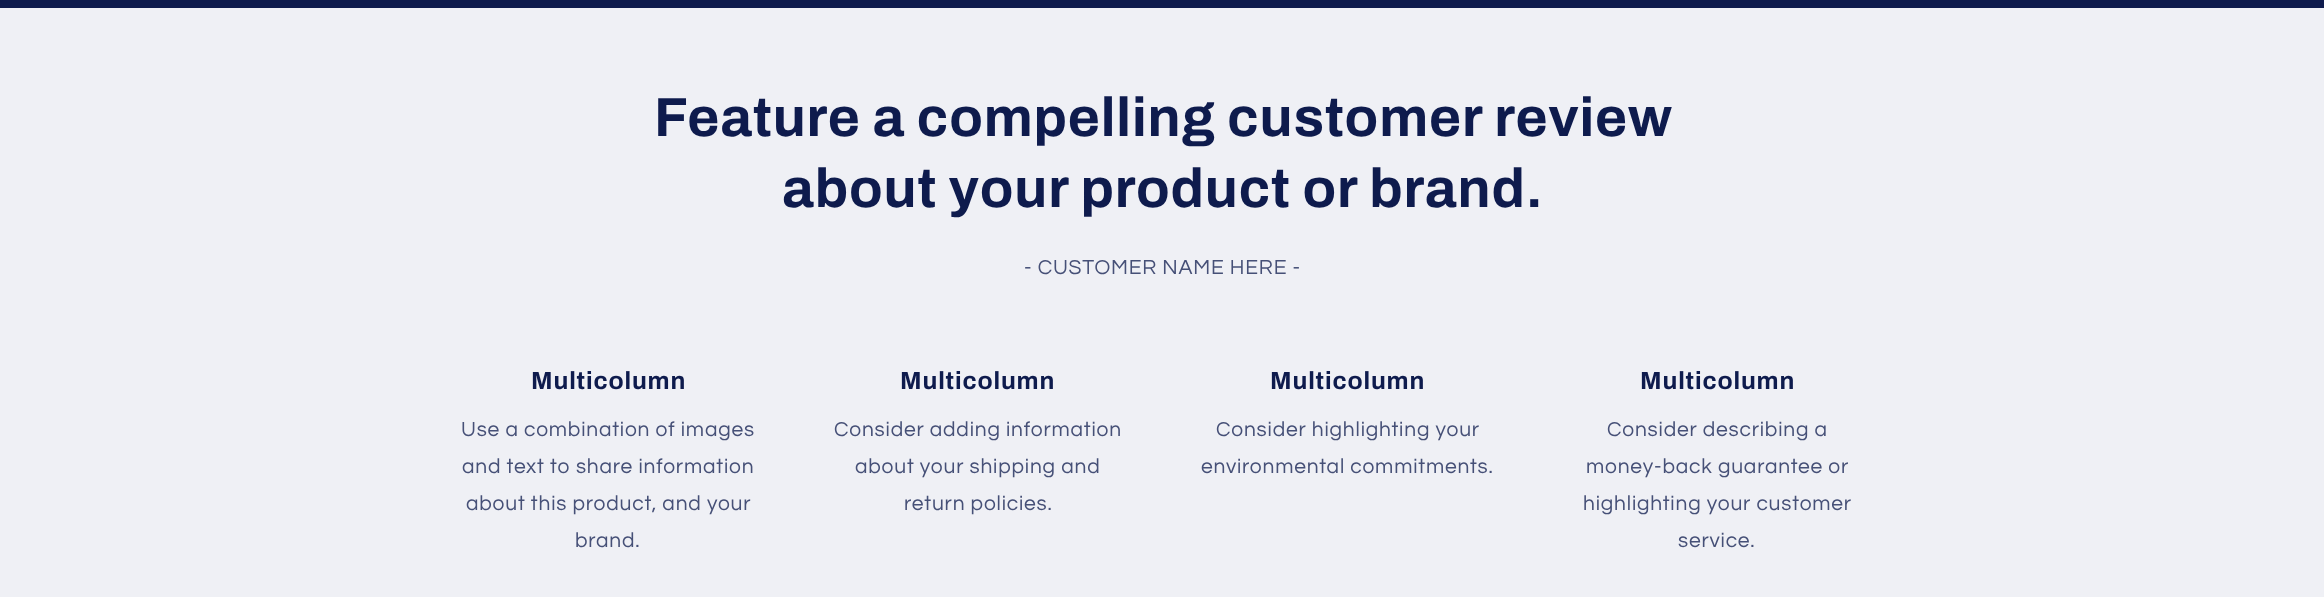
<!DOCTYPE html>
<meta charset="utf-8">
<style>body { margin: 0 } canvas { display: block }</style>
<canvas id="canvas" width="2324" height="597"></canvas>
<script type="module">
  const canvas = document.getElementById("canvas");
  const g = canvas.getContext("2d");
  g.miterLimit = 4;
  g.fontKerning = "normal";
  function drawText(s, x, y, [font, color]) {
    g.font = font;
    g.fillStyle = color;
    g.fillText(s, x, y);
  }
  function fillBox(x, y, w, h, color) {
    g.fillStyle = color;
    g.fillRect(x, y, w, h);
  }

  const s1 = ["bold 55px Archivo", "#0E1B4D"];
  const s2 = ["21px Questrial", "#465077"];
  const s3 = ["bold 24.75px Archivo", "#0E1B4D"];

  fillBox(0, 0, 2324, 597, "#EFF0F5");
  fillBox(0, 0, 2324, 8, "#0E1B4D");
  g.letterSpacing = "0.85px";
  drawText("Feature a compelling customer review", 654, 136, s1);
  drawText("about your product or brand.", 782, 207, s1);
  g.letterSpacing = "0.8px";
  drawText("- CUSTOMER NAME HERE -", 1024, 274, s2);
  g.letterSpacing = "0.85px";
  drawText("Multicolumn", 531, 389, s3);
  g.letterSpacing = "0.8px";
  drawText("Use a combination of images", 461, 436, s2);
  drawText("and text to share information", 462, 473, s2);
  drawText("about this product, and your", 466, 510, s2);
  drawText("brand.", 575, 547, s2);
  g.letterSpacing = "0.85px";
  drawText("Multicolumn", 900, 389, s3);
  g.letterSpacing = "0.8px";
  drawText("Consider adding information", 834, 436, s2);
  drawText("about your shipping and", 855, 473, s2);
  drawText("return policies.", 904, 510, s2);
  g.letterSpacing = "0.85px";
  drawText("Multicolumn", 1270, 389, s3);
  g.letterSpacing = "0.8px";
  drawText("Consider highlighting your", 1216, 436, s2);
  drawText("environmental commitments.", 1201, 473, s2);
  g.letterSpacing = "0.85px";
  drawText("Multicolumn", 1640, 389, s3);
  g.letterSpacing = "0.8px";
  drawText("Consider describing a", 1607, 436, s2);
  drawText("money-back guarantee or", 1586, 473, s2);
  drawText("highlighting your customer", 1583, 510, s2);
  drawText("service.", 1678, 547, s2);
</script>
